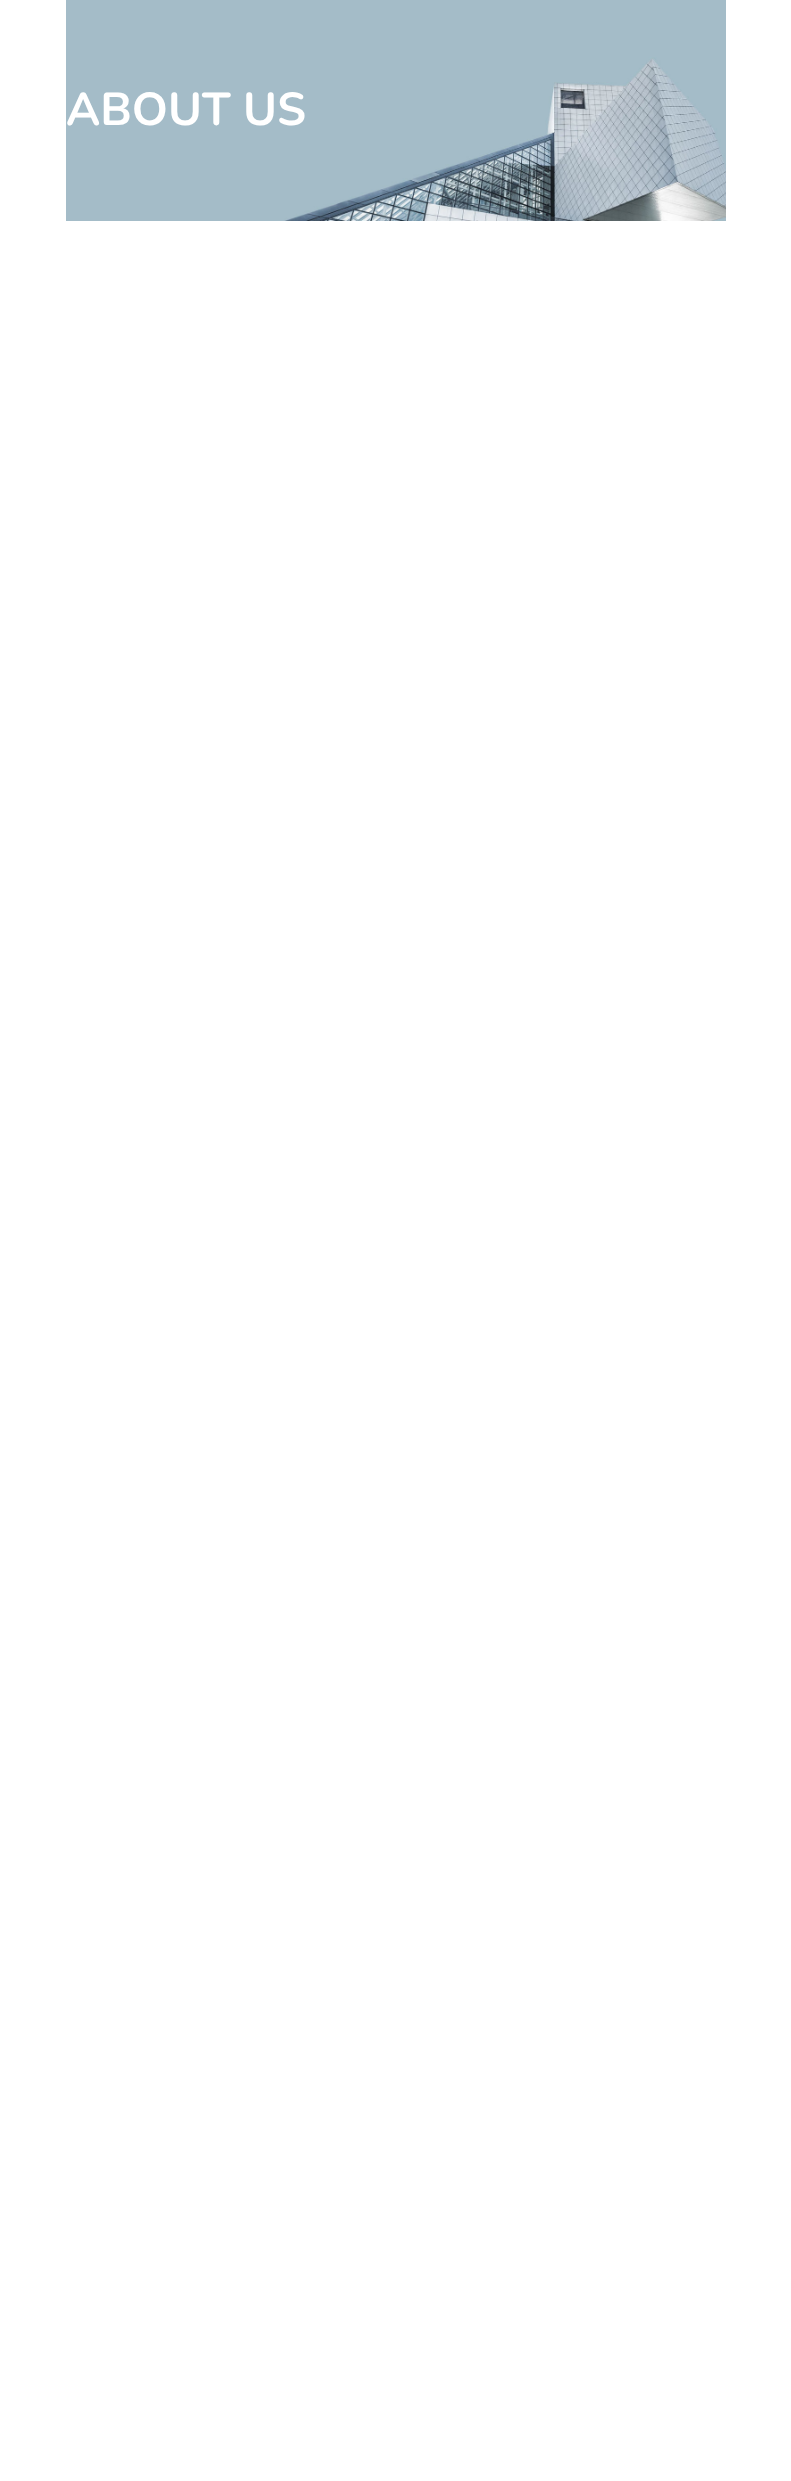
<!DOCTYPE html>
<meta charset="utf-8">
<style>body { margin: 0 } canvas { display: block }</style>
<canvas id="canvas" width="791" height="2481"></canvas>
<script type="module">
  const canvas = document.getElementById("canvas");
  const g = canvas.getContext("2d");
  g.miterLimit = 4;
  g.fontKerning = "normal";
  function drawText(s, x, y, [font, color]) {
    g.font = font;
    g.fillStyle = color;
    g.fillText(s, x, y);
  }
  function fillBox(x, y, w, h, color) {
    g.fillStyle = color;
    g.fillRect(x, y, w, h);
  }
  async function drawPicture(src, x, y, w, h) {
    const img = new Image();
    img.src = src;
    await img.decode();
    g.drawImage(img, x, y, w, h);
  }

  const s1 = ["bold 46px Nunito", "#FFFFFF"];

  fillBox(0, 0, 791, 2481, "#FFFFFF");
  await drawPicture("pic1.png", 66, 0, 660, 221);
  drawText("ABOUT US", 66, 125, s1);
</script>
